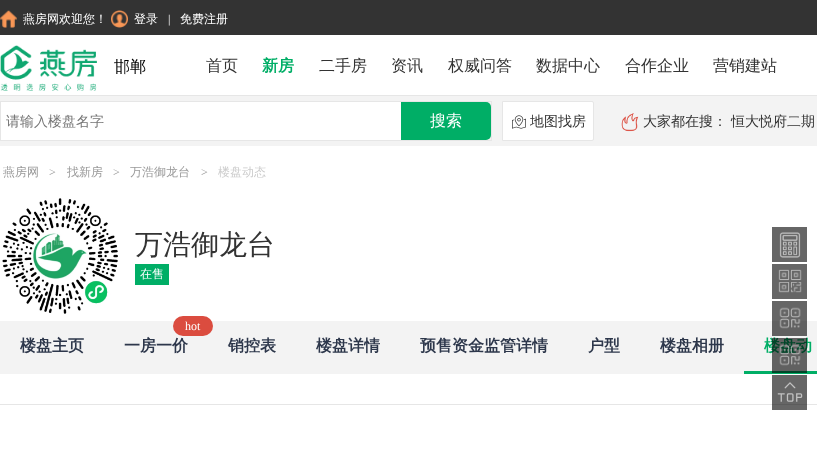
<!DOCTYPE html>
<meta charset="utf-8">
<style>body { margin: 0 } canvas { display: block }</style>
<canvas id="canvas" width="817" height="470"></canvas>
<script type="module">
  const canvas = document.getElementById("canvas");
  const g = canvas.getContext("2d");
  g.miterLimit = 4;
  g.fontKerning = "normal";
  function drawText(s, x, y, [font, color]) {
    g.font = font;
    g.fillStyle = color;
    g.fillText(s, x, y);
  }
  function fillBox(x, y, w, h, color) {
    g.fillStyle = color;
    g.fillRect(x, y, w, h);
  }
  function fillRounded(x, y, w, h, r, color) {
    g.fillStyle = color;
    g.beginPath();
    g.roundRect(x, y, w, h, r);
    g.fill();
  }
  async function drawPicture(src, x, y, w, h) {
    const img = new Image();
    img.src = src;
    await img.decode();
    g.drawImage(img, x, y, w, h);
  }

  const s1 = ["500 12px WenQuanYi Zen Hei", "#FFFFFF"];
  const s2 = ["12px Liberation Serif", "#FFFFFF"];
  const s3 = ["500 16px WenQuanYi Zen Hei", "#000000"];
  const s4 = ["500 16px WenQuanYi Zen Hei", "#333333"];
  const s5 = ["bold 16px WenQuanYi Zen Hei", "#00AE66"];
  const s6 = ["500 14px WenQuanYi Zen Hei", "#757575"];
  const s7 = ["500 16px WenQuanYi Zen Hei", "#FFFFFF"];
  const s8 = ["500 14px WenQuanYi Zen Hei", "#333333"];
  const s9 = ["500 12px WenQuanYi Zen Hei", "#999999"];
  const s10 = ["12px Liberation Serif", "#999999"];
  const s11 = ["500 12px WenQuanYi Zen Hei", "#CCCCCC"];
  const s12 = ["500 28px WenQuanYi Zen Hei", "#333333"];
  const s13 = ["bold 16px WenQuanYi Zen Hei", "#2D374B"];

  fillBox(0, 0, 817, 470, "#FFFFFF");
  fillBox(772, 375, 35, 35, "#666666");
  fillBox(772, 301, 35, 20, "#666666");
  fillBox(0, 0, 817, 35, "#333333");
  await drawPicture("pic1.png", 0, 10, 17, 18);
  drawText("燕房网欢迎您！", 23, 23, s1);
  await drawPicture("pic2.png", 111, 10, 17, 18);
  drawText("登录", 134, 23, s1);
  drawText("|", 168, 23, s2);
  drawText("免费注册", 180, 23, s1);
  fillBox(0, 95, 817, 1, "#E6E6E6");
  await drawPicture("pic3.png", 0, 45, 97, 46);
  drawText("邯郸", 114, 72, s3);
  drawText("首页", 206, 71, s4);
  drawText("新房", 262, 71, s5);
  drawText("二手房", 319, 71, s4);
  drawText("资讯", 391, 71, s4);
  drawText("权威问答", 448, 71, s4);
  drawText("数据中心", 536, 71, s4);
  drawText("合作企业", 625, 71, s4);
  drawText("营销建站", 713, 71, s4);
  fillBox(0, 96, 817, 50, "#F3F3F3");
  g.strokeStyle = "#E6E6E6";
  g.strokeRect(0.5, 101.5, 491, 39);
  fillBox(1, 102, 400, 38, "#FFFFFF");
  drawText("请输入楼盘名字", 6, 126, s6);
  g.fillStyle = "#00AE66";
  g.beginPath();
  g.roundRect(401, 102, 90, 38, [0, 5, 5, 0]);
  g.fill();
  drawText("搜索", 430, 126, s7);
  g.beginPath();
  g.roundRect(502.5, 101.5, 91, 39, [0, 1.5, 1.5, 0]);
  g.fill();
  g.stroke();
  await drawPicture("pic4.png", 512, 115, 14, 14);
  drawText("地图找房", 530, 126, s8);
  await drawPicture("pic5.png", 621, 113, 18, 19);
  drawText("大家都在搜：", 643, 126, s8);
  drawText("恒大悦府二期", 731, 126, s8);
  drawText("燕房网", 3, 176, s9);
  drawText(">", 49, 176, s10);
  drawText("找新房", 67, 176, s9);
  drawText(">", 113, 176, s10);
  drawText("万浩御龙台", 130, 176, s9);
  drawText(">", 201, 176, s10);
  drawText("楼盘动态", 218, 176, s11);
  await drawPicture("pic6.png", 2, 198, 116, 116);
  drawText("万浩御龙台", 135, 254, s12);
  fillBox(135, 264, 34, 21, "#00AE66");
  drawText("在售", 140, 278, s1);
  fillBox(0, 321, 817, 53, "#F3F3F3");
  fillBox(772, 321, 35, 15, "#616161");
  drawText("楼盘主页", 20, 351, s13);
  fillRounded(173, 316, 40, 20, 10, "#DB4C3F");
  drawText("hot", 185, 330, s2);
  drawText("一房一价", 124, 351, s13);
  drawText("销控表", 228, 351, s13);
  drawText("楼盘详情", 316, 351, s13);
  drawText("预售资金监管详情", 420, 351, s13);
  drawText("户型", 588, 351, s13);
  drawText("楼盘相册", 660, 351, s13);
  fillBox(744, 371, 73, 3, "#00AE66");
  drawText("楼盘动", 764, 351, s5);
  fillBox(0, 404, 817, 1, "#E6E6E6");
  fillBox(772, 404, 35, 1, "#5C5C5C");
  fillBox(772, 227, 35, 35, "#666666");
  await drawPicture("pic7.png", 779, 232, 22, 26);
  fillBox(772, 264, 35, 35, "#666666");
  await drawPicture("pic8.png", 778, 269, 24, 24);
  await drawPicture("pic9.png", 779, 307, 22, 22);
  fillBox(772, 338, 35, 35, "rgba(0, 0, 0, 0.6)");
  await drawPicture("pic10.png", 779, 344, 22, 22);
  await drawPicture("pic11.png", 777, 382, 26, 20);
</script>
